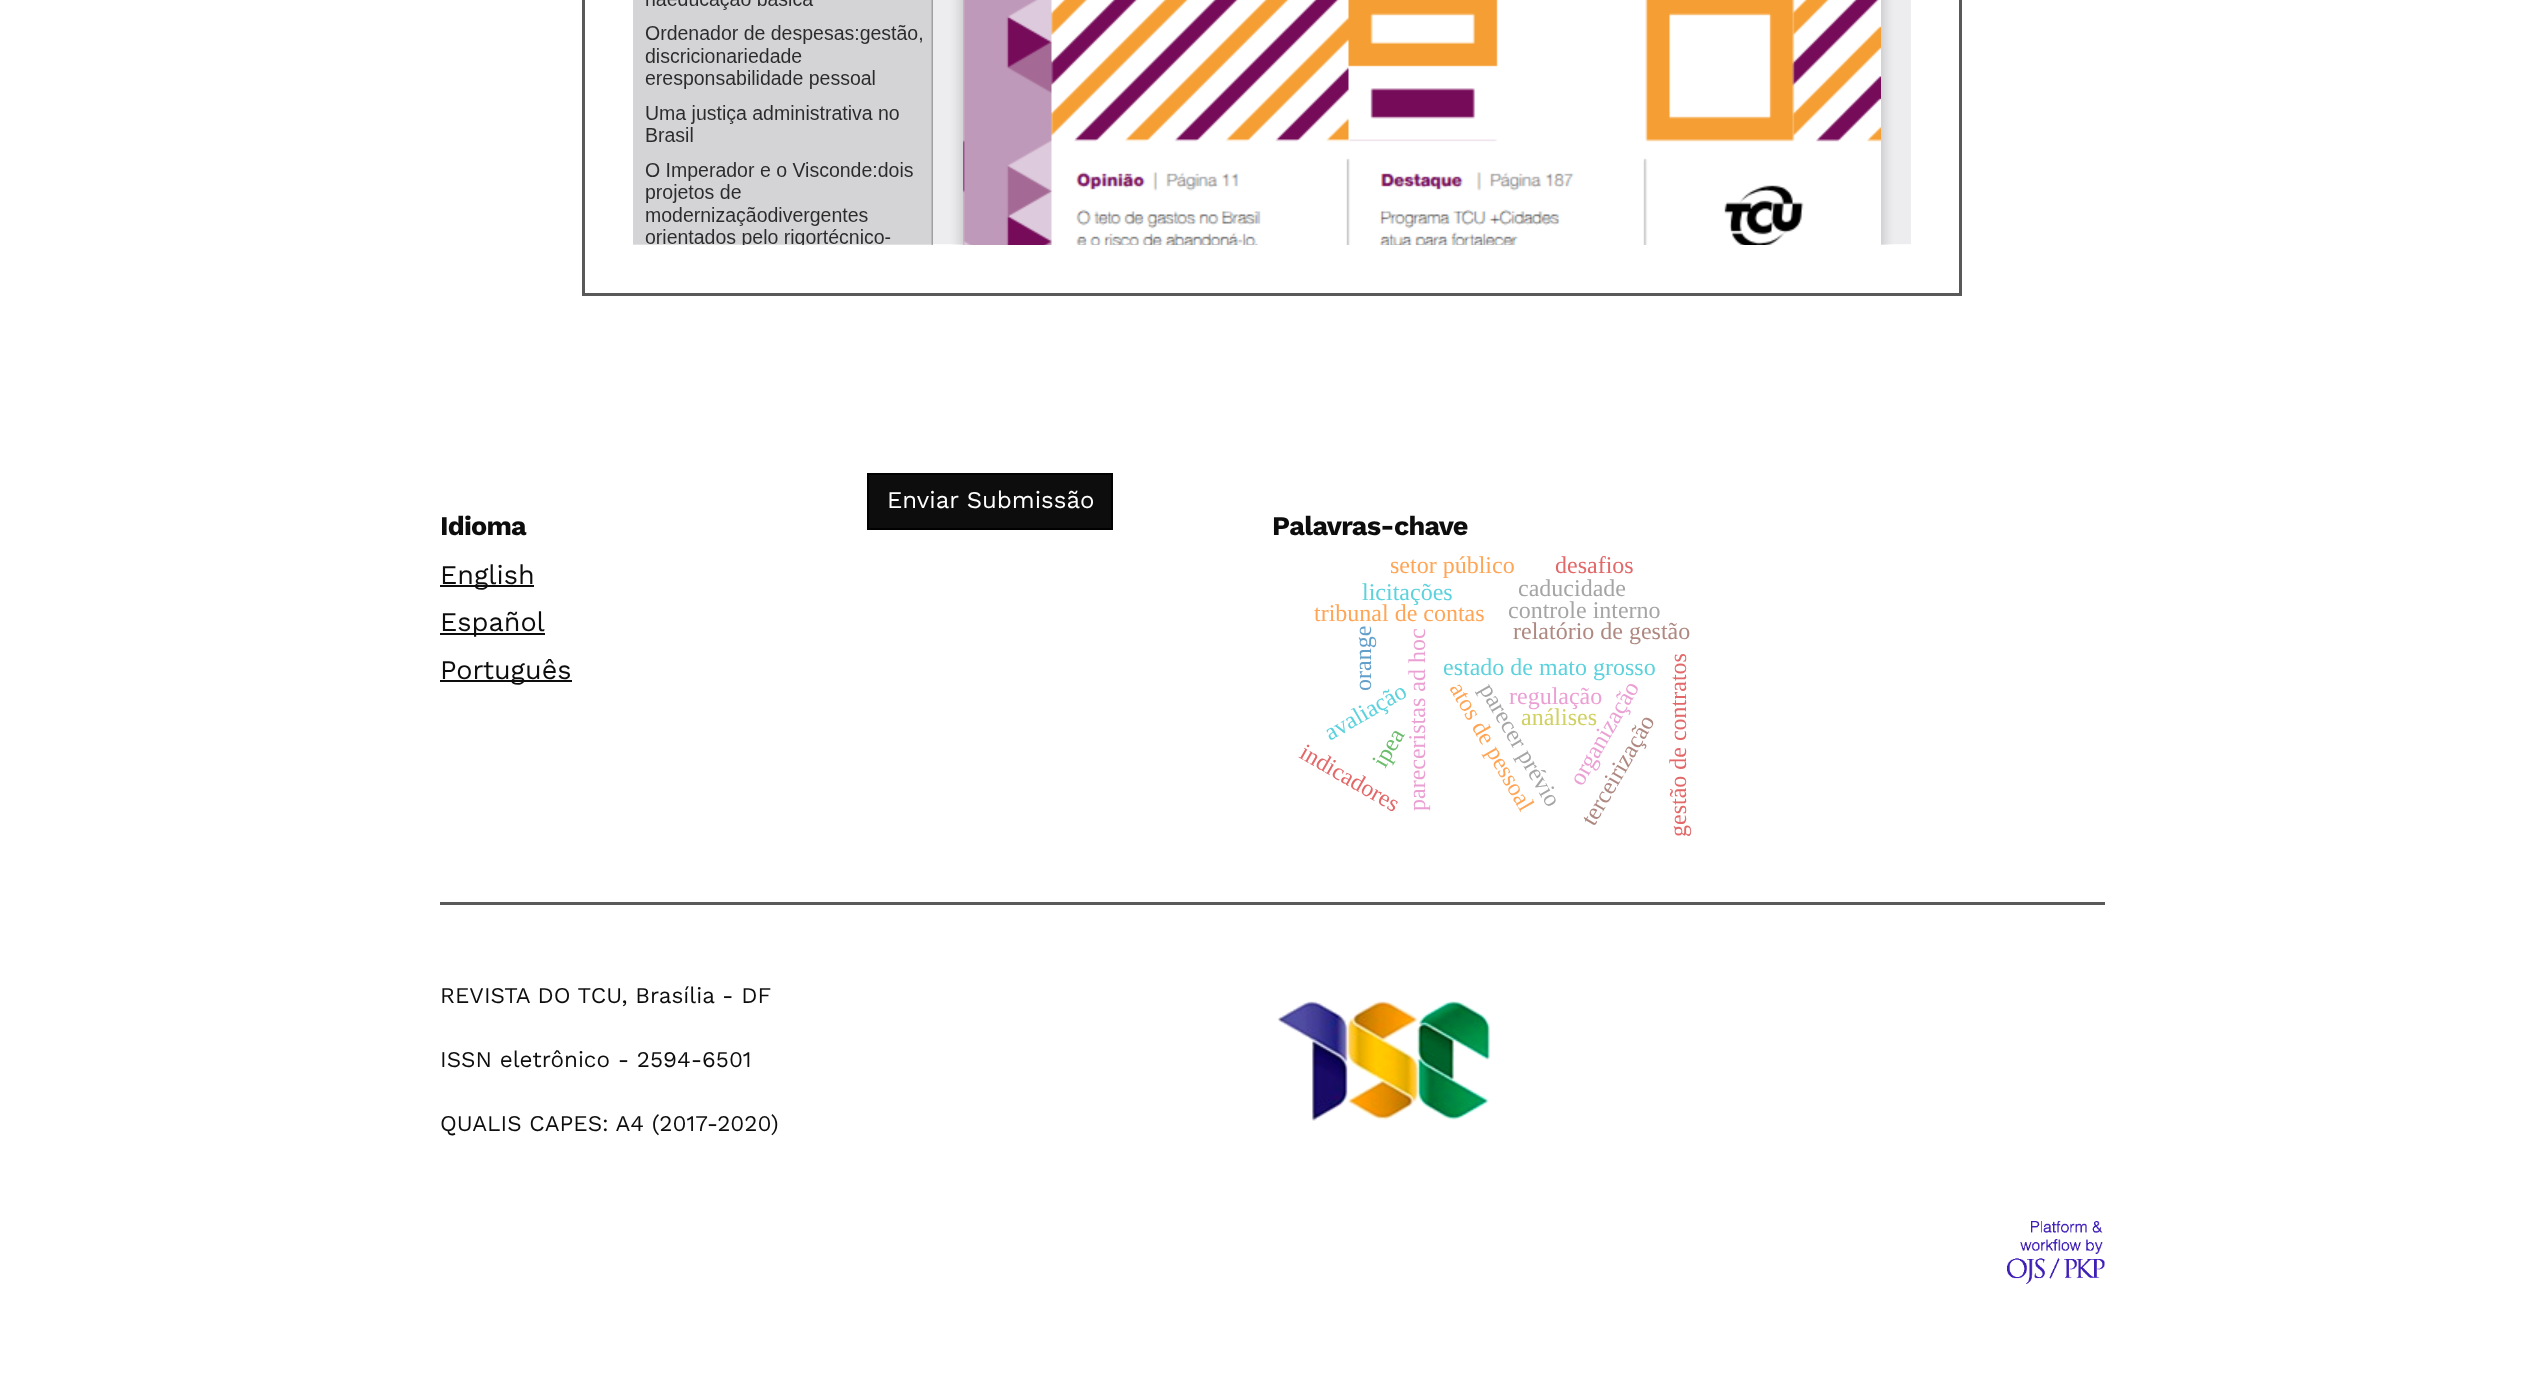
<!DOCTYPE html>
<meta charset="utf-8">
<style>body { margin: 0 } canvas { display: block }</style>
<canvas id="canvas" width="2544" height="1389"></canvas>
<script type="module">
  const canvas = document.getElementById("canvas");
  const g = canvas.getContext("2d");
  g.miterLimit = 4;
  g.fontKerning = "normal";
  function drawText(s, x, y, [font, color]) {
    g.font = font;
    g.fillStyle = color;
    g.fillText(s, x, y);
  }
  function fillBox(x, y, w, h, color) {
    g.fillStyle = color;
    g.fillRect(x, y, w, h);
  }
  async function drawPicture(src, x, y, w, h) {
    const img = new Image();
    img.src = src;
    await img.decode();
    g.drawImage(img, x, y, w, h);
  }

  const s1 = ["24px Work Sans", "#FFFFFF"];
  const s2 = ["bold 27px Work Sans", "#0D0D0D"];
  const s3 = ["27px Work Sans", "#0D0D0D"];
  const s4 = ["24px Liberation Serif", "#FFA556"];
  const s5 = ["24px Liberation Serif", "#E26869"];
  const s6 = ["24px Liberation Serif", "#5DD2DD"];
  const s7 = ["24px Liberation Serif", "#A5A5A5"];
  const s8 = ["24px Liberation Serif", "#AF8981"];
  const s9 = ["24px Liberation Serif", "#D0D164"];
  const s10 = ["24px Liberation Serif", "#EBA0D4"];
  const s11 = ["22.5px Work Sans", "#0D0D0D"];

  fillBox(0, 0, 2544, 1389, "#FFFFFF");
  g.strokeStyle = "#595959";
  g.lineWidth = 3;
  g.strokeRect(583.5, -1.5, 1377, 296);
  await drawPicture("pic1.png", 633, 0, 1278, 245);
  g.fillStyle = "#0D0D0D";
  g.beginPath();
  g.rect(868, 474, 244, 55);
  g.fill();
  g.strokeStyle = "#010101";
  g.lineWidth = 2;
  g.stroke();
  drawText("Enviar Submissão", 887, 508, s1);
  g.letterSpacing = "-0.75px";
  drawText("Idioma", 440, 535, s2);
  fillBox(440, 585, 94, 2, "#0D0D0D");
  g.letterSpacing = "0px";
  drawText("English", 440, 584, s3);
  fillBox(440, 633, 105, 2, "#0D0D0D");
  drawText("Español", 440, 631, s3);
  fillBox(440, 680, 132, 2, "#0D0D0D");
  drawText("Português", 440, 679, s3);
  g.letterSpacing = "-0.75px";
  drawText("Palavras-chave", 1272, 535, s2);
  g.letterSpacing = "0px";
  drawText("setor público", 1390, 573, s4);
  drawText("desafios", 1555, 573, s5);
  drawText("licitações", 1362, 600, s6);
  drawText("caducidade", 1518, 596, s7);
  drawText("tribunal de contas", 1314, 621, s4);
  drawText("controle interno", 1508, 618, s7);
  g.fillStyle = "#62A0CB";
  g.save();
  g.translate(1371, 691);
  g.rotate(-90 * Math.PI / 180);
  g.fillText("orange", 0, 0);
  g.restore();
  g.fillStyle = "#EBA0D4";
  g.save();
  g.translate(1425, 811);
  g.rotate(-90 * Math.PI / 180);
  g.fillText("pareceristas ad hoc", 0, 0);
  g.restore();
  drawText("relatório de gestão", 1513, 639, s8);
  drawText("estado de mato grosso", 1443, 675, s6);
  g.fillStyle = "#E26869";
  g.save();
  g.translate(1686, 837);
  g.rotate(-90 * Math.PI / 180);
  g.fillText("gestão de contratos", 0, 0);
  g.restore();
  g.fillStyle = "#A5A5A5";
  g.save();
  g.translate(1479, 689);
  g.rotate(60 * Math.PI / 180);
  g.fillText("parecer prévio", 0, 0);
  g.restore();
  g.fillStyle = "#EBA0D4";
  g.save();
  g.translate(1582, 787);
  g.rotate(-60 * Math.PI / 180);
  g.fillText("organização", 0, 0);
  g.restore();
  g.fillStyle = "#5DD2DD";
  g.save();
  g.translate(1330, 741);
  g.rotate(-30 * Math.PI / 180);
  g.fillText("avaliação", 0, 0);
  g.restore();
  drawText("análises", 1521, 725, s9);
  g.fillStyle = "#FFA556";
  g.save();
  g.translate(1449, 688);
  g.rotate(60 * Math.PI / 180);
  g.fillText("atos de pessoal", 0, 0);
  g.restore();
  drawText("regulação", 1509, 704, s10);
  g.fillStyle = "#E26869";
  g.save();
  g.translate(1298, 757);
  g.rotate(30 * Math.PI / 180);
  g.fillText("indicadores", 0, 0);
  g.restore();
  g.fillStyle = "#6BBD6B";
  g.save();
  g.translate(1385, 769);
  g.rotate(-60 * Math.PI / 180);
  g.fillText("ipea", 0, 0);
  g.restore();
  g.fillStyle = "#AF8981";
  g.save();
  g.translate(1594, 827);
  g.rotate(-60 * Math.PI / 180);
  g.fillText("terceirização", 0, 0);
  g.restore();
  fillBox(440, 902, 1665, 3, "#595959");
  drawText("REVISTA DO TCU, Brasília - DF", 440, 1003, s11);
  drawText("ISSN eletrônico - 2594-6501", 440, 1067, s11);
  drawText("QUALIS CAPES: A4 (2017-2020)", 440, 1131, s11);
  await drawPicture("pic2.png", 1277, 1000, 213, 121);
  await drawPicture("pic3.png", 2007, 1221, 98, 63);
</script>
